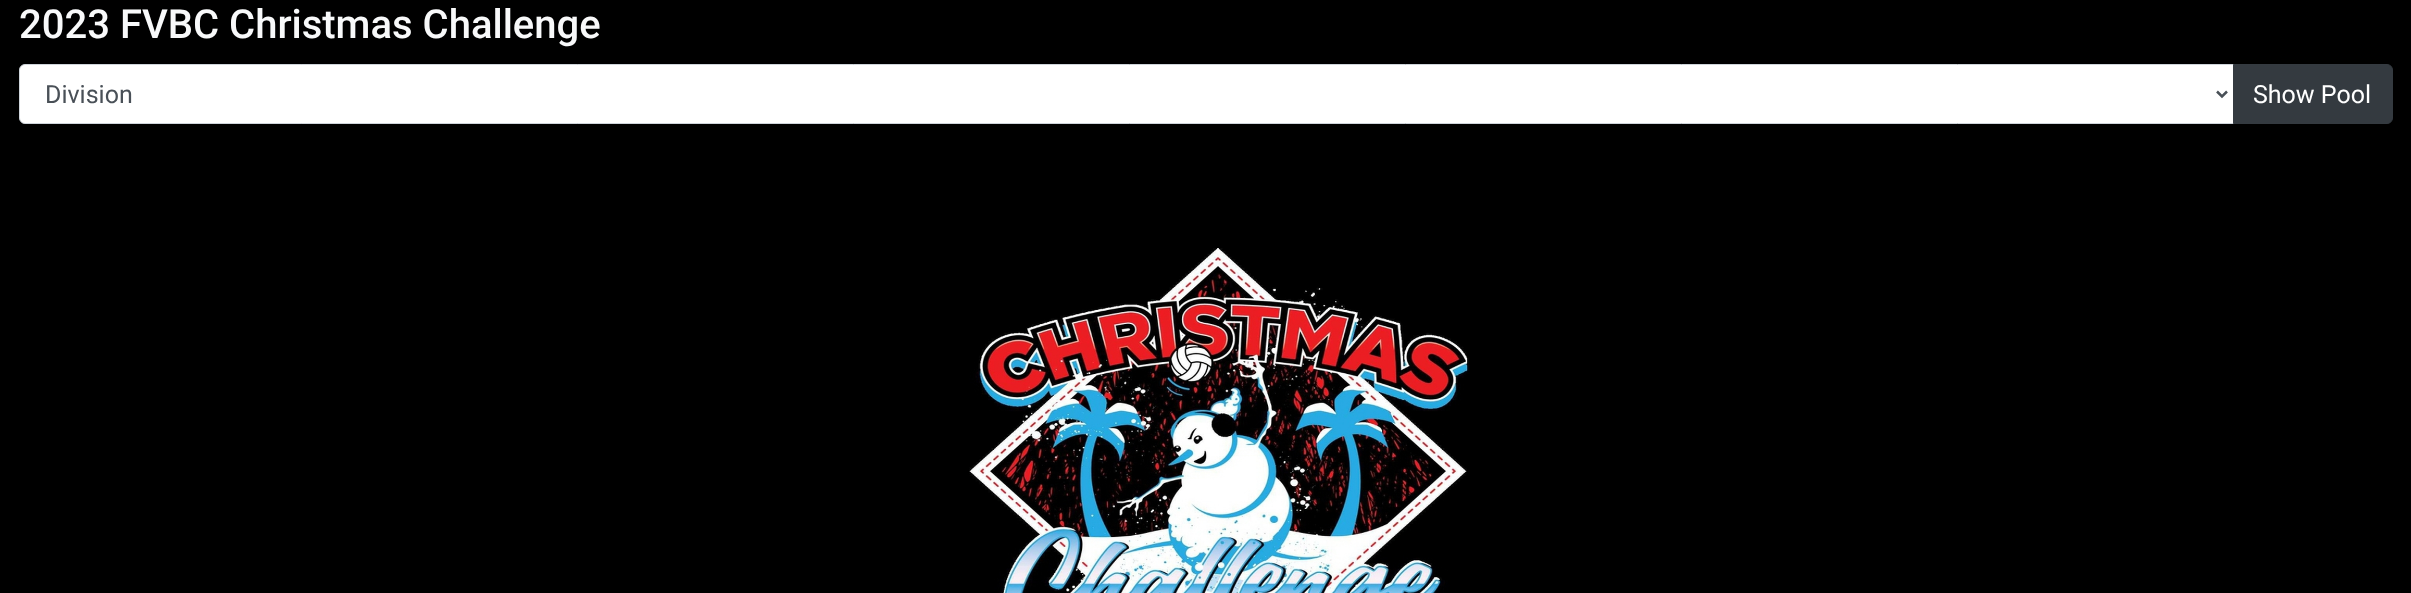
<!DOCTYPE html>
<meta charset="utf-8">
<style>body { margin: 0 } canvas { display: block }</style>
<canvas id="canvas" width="2411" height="593"></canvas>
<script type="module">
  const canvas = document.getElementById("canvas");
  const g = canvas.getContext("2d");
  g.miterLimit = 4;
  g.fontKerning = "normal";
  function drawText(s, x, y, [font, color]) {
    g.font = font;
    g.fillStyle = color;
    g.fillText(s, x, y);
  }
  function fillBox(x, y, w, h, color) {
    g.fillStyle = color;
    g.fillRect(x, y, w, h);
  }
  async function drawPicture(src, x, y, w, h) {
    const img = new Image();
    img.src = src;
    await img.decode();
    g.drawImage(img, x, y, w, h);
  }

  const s1 = ["500 40px Roboto", "#F8F9FA"];
  const s2 = ["25px Roboto", "#495057"];
  const s3 = ["25px Roboto", "#FFFFFF"];

  fillBox(0, 0, 2411, 593, "#000000");
  drawText("2023 FVBC Christmas Challenge", 19, 38, s1);
  g.fillStyle = "#FFFFFF";
  g.beginPath();
  g.roundRect(19.5, 64.5, 2214, 59, [5.5, 0, 0, 5.5]);
  g.fill();
  g.strokeStyle = "#CED4DA";
  g.stroke();
  g.beginPath();
  g.moveTo(2217, 91.5);
  g.lineTo(2222, 96.5);
  g.lineTo(2227, 91.5);
  g.strokeStyle = "#495057";
  g.lineWidth = 2.5;
  g.stroke();
  drawText("Division", 45, 103, s2);
  g.fillStyle = "#343A40";
  g.beginPath();
  g.roundRect(2233.5, 64.5, 159, 59, [0, 5.5, 5.5, 0]);
  g.fill();
  g.strokeStyle = "#343A40";
  g.lineWidth = 1;
  g.stroke();
  drawText("Show Pool", 2253, 103, s3);
  await drawPicture("pic1.png", 969, 248, 501, 345);
</script>
